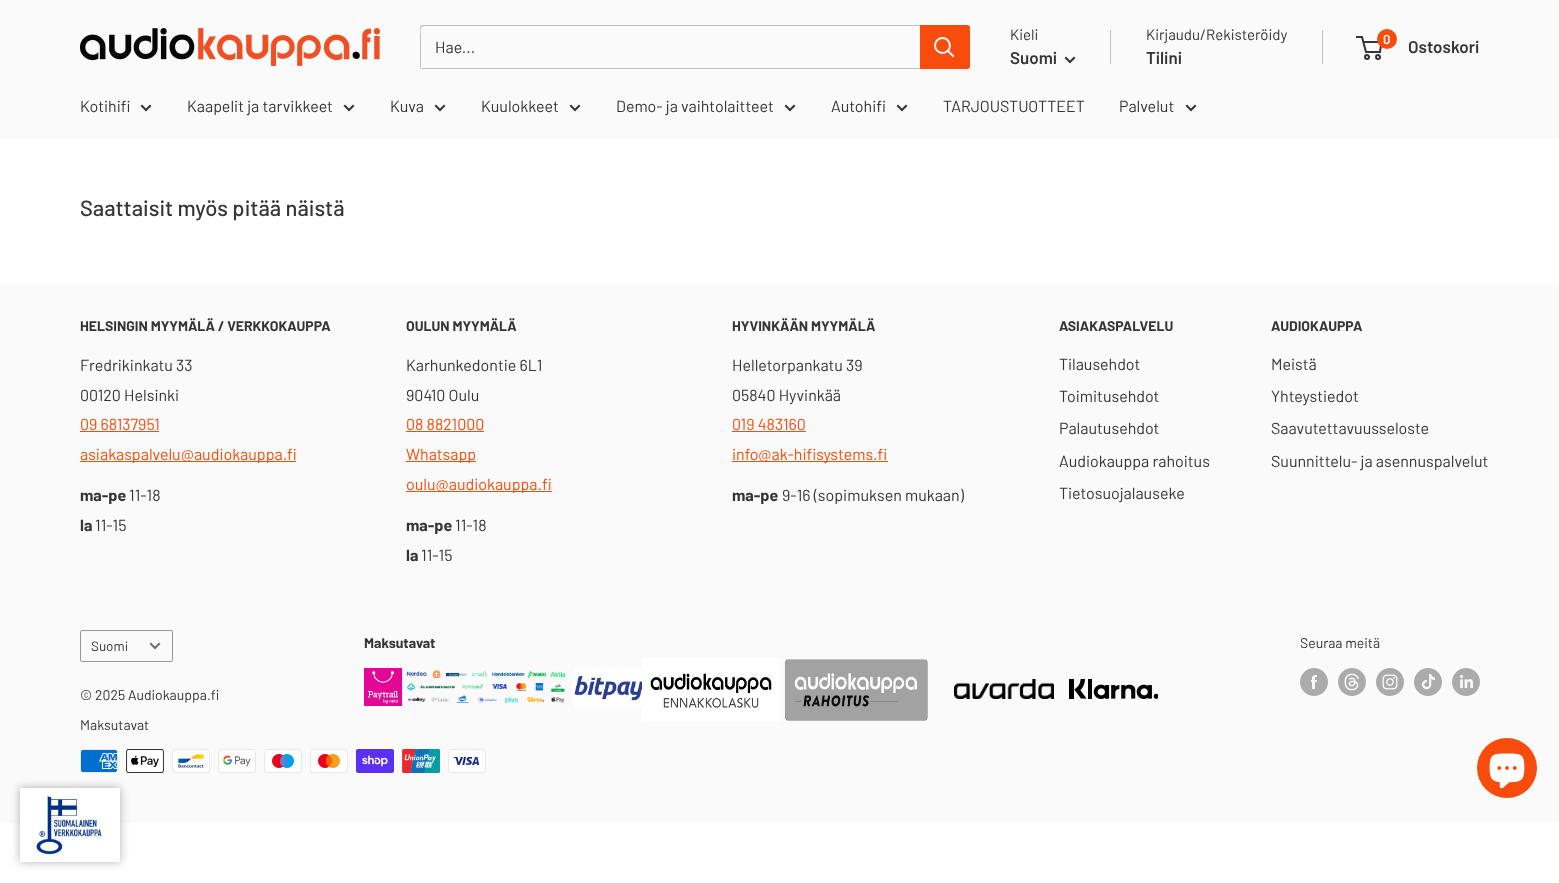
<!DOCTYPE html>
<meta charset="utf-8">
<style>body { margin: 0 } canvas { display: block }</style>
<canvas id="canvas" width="1559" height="883"></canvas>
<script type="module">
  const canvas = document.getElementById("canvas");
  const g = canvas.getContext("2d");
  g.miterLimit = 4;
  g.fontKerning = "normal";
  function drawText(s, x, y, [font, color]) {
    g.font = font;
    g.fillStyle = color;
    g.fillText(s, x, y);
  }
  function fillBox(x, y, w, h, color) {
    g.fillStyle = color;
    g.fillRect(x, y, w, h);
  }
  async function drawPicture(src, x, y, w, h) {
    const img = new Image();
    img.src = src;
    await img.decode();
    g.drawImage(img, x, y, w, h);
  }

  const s1 = ["16px Barlow", "#353535"];
  const s2 = ["15px Barlow", "#353535"];
  const s3 = ["600 17px Barlow", "#353535"];
  const s4 = ["600 13px Barlow", "#FAFAFA"];
  const s5 = ["500 22px Barlow", "#353535"];
  const s6 = ["bold 14px Barlow", "#353535"];
  const s7 = ["16px Barlow", "#F84C0C"];
  const s8 = ["bold 16px Barlow", "#353535"];
  const s9 = ["13.5px Barlow", "#353535"];
  const s10 = ["14px Barlow", "#353535"];

  fillBox(0, 0, 1559, 883, "#FFFFFF");
  fillBox(0, 0, 1559, 139, "#FAFAFA");
  await drawPicture("pic1.png", 80, 28, 300, 38);
  g.fillStyle = "#BFBFBF";
  g.beginPath();
  g.moveTo(421, 68);
  g.bezierCurveTo(421, 69, 422, 69, 423, 69);
  g.lineTo(967, 69);
  g.bezierCurveTo(969, 69, 970, 68, 970, 66);
  g.lineTo(970, 28);
  g.bezierCurveTo(970, 27, 970, 26, 969, 26);
  g.lineTo(969, 59);
  g.bezierCurveTo(969, 61, 971, 68, 966, 68);
  g.closePath();
  g.fill();
  g.beginPath();
  g.moveTo(424, 26);
  g.lineTo(969, 26);
  g.bezierCurveTo(969, 25, 968, 25, 967, 25);
  g.lineTo(423, 25);
  g.bezierCurveTo(421, 25, 420, 26, 420, 28);
  g.lineTo(420, 66);
  g.bezierCurveTo(420, 67, 420, 68, 421, 68);
  g.lineTo(421, 35);
  g.bezierCurveTo(421, 33, 419, 26, 424, 26);
  g.closePath();
  g.fill();
  drawText("Hae...", 435, 53, s1);
  g.fillStyle = "#F84C0C";
  g.beginPath();
  g.roundRect(920, 25, 50, 44, [0, 3, 3, 0]);
  g.fill();
  g.beginPath();
  g.moveTo(953, 56);
  g.lineTo(948, 51);
  g.strokeStyle = "#FAFAFA";
  g.lineWidth = 2;
  g.lineCap = "square";
  g.stroke();
  g.beginPath();
  g.arc(942.5, 45.5, 7.5, 0, Math.PI * 2);
  g.stroke();
  drawText("Kieli", 1010, 40, s2);
  drawText("Suomi", 1010, 64, s3);
  g.beginPath();
  g.moveTo(1074, 58);
  g.lineTo(1070, 62);
  g.lineTo(1066, 58);
  g.strokeStyle = "#353535";
  g.stroke();
  fillBox(1110, 30, 1, 34, "#BFBFBF");
  drawText("Kirjaudu/Rekisteröidy", 1146, 40, s2);
  fillBox(1322, 30, 1, 34, "#BFBFBF");
  drawText("Tilini", 1146, 64, s3);
  g.beginPath();
  g.arc(1367, 57, 2, 0, Math.PI * 2);
  g.stroke();
  g.beginPath();
  g.arc(1378, 57, 2, 0, Math.PI * 2);
  g.stroke();
  g.beginPath();
  g.moveTo(1363.5, 42);
  g.lineTo(1381.5, 42);
  g.lineTo(1380, 52);
  g.lineTo(1366, 52);
  g.lineTo(1362, 37);
  g.lineTo(1356, 37);
  g.lineCap = "butt";
  g.stroke();
  g.fillStyle = "#F84C0C";
  g.beginPath();
  g.arc(1387, 39, 10, 0, Math.PI * 2);
  g.fill();
  drawText("0", 1383, 44, s4);
  drawText("Ostoskori", 1408, 53, s3);
  drawText("Kotihifi", 80, 112, s1);
  g.beginPath();
  g.moveTo(150, 106);
  g.lineTo(146, 110);
  g.lineTo(142, 106);
  g.lineCap = "square";
  g.stroke();
  drawText("Kaapelit ja tarvikkeet", 187, 112, s1);
  g.beginPath();
  g.moveTo(353, 106);
  g.lineTo(349, 110);
  g.lineTo(345, 106);
  g.stroke();
  drawText("Kuva", 390, 112, s1);
  g.beginPath();
  g.moveTo(444, 106);
  g.lineTo(440, 110);
  g.lineTo(436, 106);
  g.stroke();
  drawText("Kuulokkeet", 481, 112, s1);
  g.beginPath();
  g.moveTo(579, 106);
  g.lineTo(575, 110);
  g.lineTo(571, 106);
  g.stroke();
  drawText("Demo- ja vaihtolaitteet", 616, 112, s1);
  g.beginPath();
  g.moveTo(794, 106);
  g.lineTo(790, 110);
  g.lineTo(786, 106);
  g.stroke();
  drawText("Autohifi", 831, 112, s1);
  g.beginPath();
  g.moveTo(906, 106);
  g.lineTo(902, 110);
  g.lineTo(898, 106);
  g.stroke();
  drawText("TARJOUSTUOTTEET", 943, 112, s1);
  drawText("Palvelut", 1119, 112, s1);
  g.beginPath();
  g.moveTo(1195, 106);
  g.lineTo(1191, 110);
  g.lineTo(1187, 106);
  g.stroke();
  drawText("Saattaisit myös pitää näistä", 80, 216, s5);
  fillBox(0, 284, 1559, 539, "#FAFAFA");
  drawText("HELSINGIN MYYMÄLÄ / VERKKOKAUPPA", 80, 331, s6);
  drawText("Fredrikinkatu 33", 80, 371, s1);
  drawText("00120 Helsinki", 80, 401, s1);
  drawText("09 68137951", 80, 430, s7);
  fillBox(80, 431, 79, 1, "#F84C0C");
  fillBox(80, 461, 216, 1, "#F84C0C");
  drawText("asiakaspalvelu@audiokauppa.fi", 80, 460, s7);
  drawText("ma-pe", 80, 501, s8);
  drawText("11-18", 129, 501, s1);
  drawText("la", 80, 531, s8);
  drawText("11-15", 95, 531, s1);
  drawText("OULUN MYYMÄLÄ", 406, 331, s6);
  drawText("Karhunkedontie 6L1", 406, 371, s1);
  drawText("90410 Oulu", 406, 401, s1);
  drawText("08 8821000", 406, 430, s7);
  fillBox(406, 431, 78, 1, "#F84C0C");
  fillBox(406, 461, 70, 1, "#F84C0C");
  drawText("Whatsapp", 406, 460, s7);
  fillBox(406, 491, 146, 1, "#F84C0C");
  drawText("oulu@audiokauppa.fi", 406, 490, s7);
  drawText("ma-pe", 406, 531, s8);
  drawText("11-18", 455, 531, s1);
  drawText("la", 406, 561, s8);
  drawText("11-15", 421, 561, s1);
  drawText("HYVINKÄÄN MYYMÄLÄ", 732, 331, s6);
  drawText("Helletorpankatu 39", 732, 371, s1);
  drawText("05840 Hyvinkää", 732, 401, s1);
  drawText("019 483160", 732, 430, s7);
  fillBox(732, 431, 74, 1, "#F84C0C");
  fillBox(732, 461, 156, 1, "#F84C0C");
  drawText("info@ak-hifisystems.fi", 732, 460, s7);
  drawText("ma-pe", 732, 501, s8);
  drawText("9-16 (sopimuksen mukaan)", 782, 501, s1);
  drawText("ASIAKASPALVELU", 1059, 331, s6);
  drawText("Tilausehdot", 1059, 370, s1);
  drawText("Toimitusehdot", 1059, 402, s1);
  drawText("Palautusehdot", 1059, 434, s1);
  drawText("Audiokauppa rahoitus", 1059, 467, s1);
  drawText("Tietosuojalauseke", 1059, 499, s1);
  drawText("AUDIOKAUPPA", 1271, 331, s6);
  drawText("Meistä", 1271, 370, s1);
  drawText("Yhteystiedot", 1271, 402, s1);
  drawText("Saavutettavuusseloste", 1271, 434, s1);
  drawText("Suunnittelu- ja asennuspalvelut", 1271, 467, s1);
  g.beginPath();
  g.roundRect(80.5, 630.5, 92, 31, 1.5);
  g.strokeStyle = "#989898";
  g.lineWidth = 1;
  g.stroke();
  drawText("Suomi", 91, 651, s9);
  g.beginPath();
  g.moveTo(159, 644);
  g.lineTo(155, 648);
  g.lineTo(151, 644);
  g.strokeStyle = "#707070";
  g.lineWidth = 2;
  g.stroke();
  drawText("© 2025 Audiokauppa.fi", 80, 700, s10);
  drawText("Maksutavat", 364, 648, s6);
  await drawPicture("pic2.png", 364, 668, 201, 38);
  await drawPicture("pic3.png", 573, 668, 69, 40);
  await drawPicture("pic4.png", 642, 658, 138, 64);
  await drawPicture("pic5.png", 785, 659, 143, 62);
  await drawPicture("pic6.png", 954, 679, 100, 20);
  await drawPicture("pic7.png", 1069, 679, 89, 20);
  drawText("Seuraa meitä", 1300, 648, s10);
  await drawPicture("pic8.png", 1300, 668, 28, 28);
  await drawPicture("pic9.png", 1338, 668, 28, 28);
  await drawPicture("pic10.png", 1376, 668, 28, 28);
  await drawPicture("pic11.png", 1414, 668, 28, 28);
  await drawPicture("pic12.png", 1452, 668, 28, 28);
  drawText("Maksutavat", 80, 730, s10);
  await drawPicture("pic13.png", 80, 749, 38, 24);
  await drawPicture("pic14.png", 126, 749, 38, 24);
  await drawPicture("pic15.png", 172, 749, 38, 24);
  await drawPicture("pic16.png", 218, 749, 38, 24);
  await drawPicture("pic17.png", 264, 749, 38, 24);
  await drawPicture("pic18.png", 310, 749, 38, 24);
  await drawPicture("pic19.png", 356, 749, 38, 24);
  await drawPicture("pic20.png", 402, 749, 38, 24);
  await drawPicture("pic21.png", 448, 749, 38, 24);
  g.save();
  g.beginPath();
  g.moveTo(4, 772);
  g.lineTo(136, 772);
  g.lineTo(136, 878);
  g.lineTo(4, 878);
  g.closePath();
  g.moveTo(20, 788);
  g.lineTo(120, 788);
  g.lineTo(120, 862);
  g.lineTo(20, 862);
  g.closePath();
  g.clip("evenodd");
  g.fillStyle = "rgba(0, 0, 0, 0.3)";
  g.filter = "blur(5px)";
  g.beginPath();
  g.rect(20, 788, 100, 74);
  g.fill();
  g.filter = "none";
  g.restore();
  await drawPicture("pic22.png", 20, 788, 100, 67);
  g.fillStyle = "#F84C0C";
  g.beginPath();
  g.arc(1507, 768, 30, 0, Math.PI * 2);
  g.fill();
  await drawPicture("pic23.png", 1489, 753, 36, 36);
</script>
